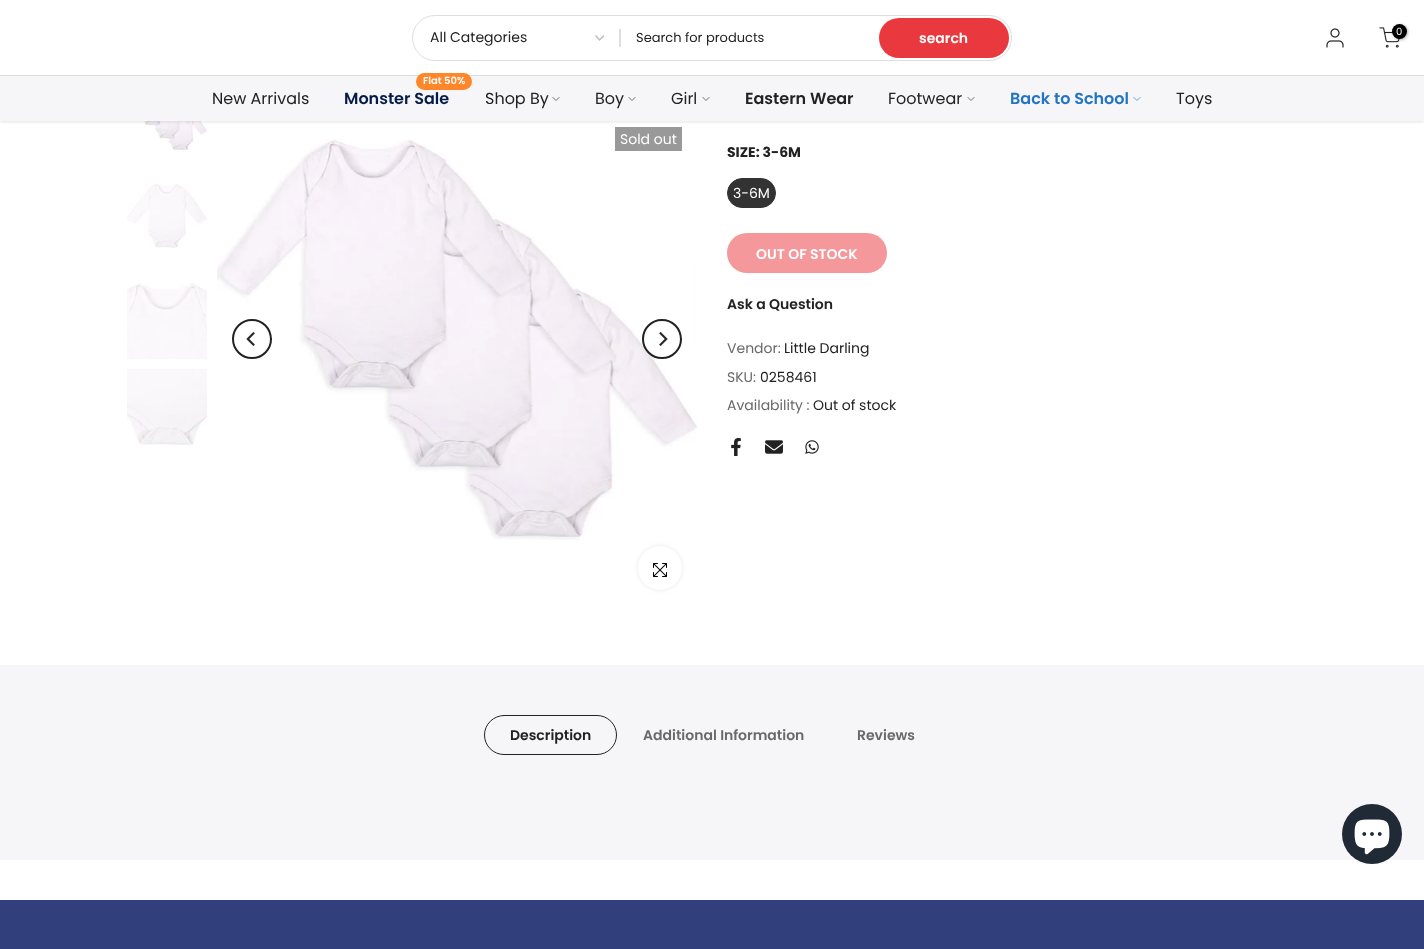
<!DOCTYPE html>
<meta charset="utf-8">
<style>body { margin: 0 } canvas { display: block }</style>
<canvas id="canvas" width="1424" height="949"></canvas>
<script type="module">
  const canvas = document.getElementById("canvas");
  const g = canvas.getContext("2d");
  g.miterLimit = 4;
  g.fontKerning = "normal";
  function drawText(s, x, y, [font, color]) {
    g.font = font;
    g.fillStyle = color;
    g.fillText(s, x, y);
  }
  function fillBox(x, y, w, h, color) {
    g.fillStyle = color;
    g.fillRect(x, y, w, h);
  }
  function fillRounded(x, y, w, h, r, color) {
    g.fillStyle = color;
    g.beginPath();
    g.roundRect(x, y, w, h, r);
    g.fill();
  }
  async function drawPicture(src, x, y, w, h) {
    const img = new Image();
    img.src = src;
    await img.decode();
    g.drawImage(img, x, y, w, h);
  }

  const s1 = ["14px Poppins", "#222222"];
  const s2 = ["13px Poppins", "#222222"];
  const s3 = ["600 14px Poppins", "#FFFFFF"];
  const s4 = ["10px Poppins", "#FFFFFF"];
  const s5 = ["16px Poppins", "#222222"];
  const s6 = ["600 10px Poppins", "#FFFFFF"];
  const s7 = ["600 16px Poppins", "#051C46"];
  const s8 = ["600 16px Poppins", "#222222"];
  const s9 = ["600 16px Poppins", "#2275C2"];
  const s10 = ["14px Poppins", "#FFFFFF"];
  const s11 = ["bold 14px Poppins", "#222222"];
  const s12 = ["600 14px Poppins", "#222222"];
  const s13 = ["14px Poppins", "#696969"];
  const s14 = ["600 14px Poppins", "#696969"];

  fillBox(0, 0, 1424, 949, "#FFFFFF");
  await drawPicture("pic3.png", 127, 121, 80, 31);
  await drawPicture("pic7.png", 217, 139, 480, 401);
  fillBox(615, 127, 67, 24, "#999999");
  g.fillStyle = "rgba(0, 0, 0, 0.1)";
  g.filter = "blur(1.5px)";
  g.beginPath();
  g.rect(0, 1, 1424, 121);
  g.fill();
  g.filter = "none";
  fillBox(0, 0, 1424, 75, "#FFFFFF");
  fillBox(0, 75, 1424, 1, "#DEDEDE");
  g.beginPath();
  g.roundRect(412.5, 15.5, 599, 45, 22.5);
  g.strokeStyle = "#DEDEDE";
  g.stroke();
  g.beginPath();
  g.moveTo(595.5, 35.5);
  g.lineTo(599.5, 40);
  g.lineTo(604, 35.5);
  g.strokeStyle = "#BBBBBB";
  g.lineWidth = 1.4;
  g.stroke();
  drawText("All Categories", 430, 42, s1);
  fillBox(619, 29, 2, 18, "#DEDEDE");
  drawText("Search for products", 636, 42, s2);
  fillRounded(879, 18, 130, 40, 20, "#EA393E");
  drawText("search", 919, 43, s3);
  await drawPicture("pic1.png", 1326, 28, 18, 20);
  await drawPicture("pic2.png", 1379, 27, 21, 21);
  g.fillStyle = "rgba(0, 0, 0, 0.3)";
  g.filter = "blur(1.5px)";
  g.beginPath();
  g.roundRect(1393, 25, 15, 15, 7.5);
  g.fill();
  g.filter = "none";
  g.fillStyle = "#000000";
  g.beginPath();
  g.arc(1399.5, 31.5, 7.5, 0, Math.PI * 2);
  g.fill();
  drawText("0", 1396, 35, s4);
  fillBox(0, 76, 1424, 45, "#F6F6F8");
  drawText("New Arrivals", 212, 104, s5);
  fillRounded(416, 73, 56, 17, 8.5, "#FF8629");
  drawText("Flat 50%", 423, 84, s6);
  drawText("Monster Sale", 344, 104, s7);
  drawText("Shop By", 485, 104, s5);
  g.beginPath();
  g.moveTo(559, 97.5);
  g.lineTo(556, 100.5);
  g.lineTo(553, 97.5);
  g.strokeStyle = "#4C4C4D";
  g.lineWidth = 0.8;
  g.lineCap = "square";
  g.stroke();
  drawText("Boy", 595, 104, s5);
  g.beginPath();
  g.moveTo(635, 97.5);
  g.lineTo(632, 100.5);
  g.lineTo(629, 97.5);
  g.stroke();
  drawText("Girl", 671, 104, s5);
  g.beginPath();
  g.moveTo(709, 97.5);
  g.lineTo(706, 100.5);
  g.lineTo(703, 97.5);
  g.stroke();
  drawText("Eastern Wear", 745, 104, s8);
  drawText("Footwear", 888, 104, s5);
  g.beginPath();
  g.moveTo(974, 97.5);
  g.lineTo(971, 100.5);
  g.lineTo(968, 97.5);
  g.stroke();
  drawText("Back to School", 1010, 104, s9);
  g.beginPath();
  g.moveTo(1140, 97.5);
  g.lineTo(1137, 100.5);
  g.lineTo(1134, 97.5);
  g.strokeStyle = "#4C8FCD";
  g.stroke();
  drawText("Toys", 1176, 104, s5);
  await drawPicture("pic4.png", 127, 184, 80, 64);
  await drawPicture("pic5.png", 127, 283, 80, 76);
  await drawPicture("pic6.png", 127, 369, 80, 76);
  drawText("Sold out", 620, 144, s10);
  g.beginPath();
  g.arc(252, 339, 19, 0, Math.PI * 2);
  g.strokeStyle = "#222222";
  g.lineWidth = 2;
  g.stroke();
  await drawPicture("pic8.png", 246, 332, 9, 14);
  g.beginPath();
  g.arc(662, 339, 19, 0, Math.PI * 2);
  g.stroke();
  await drawPicture("pic9.png", 659, 332, 9, 14);
  g.fillStyle = "rgba(0, 0, 0, 0.09)";
  g.filter = "blur(2.5px)";
  g.beginPath();
  g.roundRect(638, 546, 44, 44, 22);
  g.fill();
  g.filter = "none";
  g.fillStyle = "#FFFFFF";
  g.beginPath();
  g.arc(660, 568, 22, 0, Math.PI * 2);
  g.fill();
  await drawPicture("pic10.png", 653, 563, 14, 14);
  drawText("SIZE: 3-6M", 727, 157, s11);
  g.fillStyle = "#333333";
  g.beginPath();
  g.roundRect(727.5, 178.5, 48, 29, 14.5);
  g.fill();
  g.strokeStyle = "#333333";
  g.lineWidth = 1;
  g.stroke();
  drawText("3-6M", 733, 198, s10);
  fillRounded(727, 233, 160, 40, 20, "#F4989B");
  drawText("OUT OF STOCK", 756, 259, s3);
  drawText("Ask a Question", 727, 309, s12);
  drawText("Vendor:", 727, 353, s13);
  drawText("Little Darling", 784, 353, s1);
  drawText("SKU:", 727, 382, s13);
  drawText("0258461", 760, 382, s1);
  drawText("Availability :", 727, 410, s13);
  drawText("Out of stock", 813, 410, s1);
  await drawPicture("pic11.png", 731, 438, 10, 18);
  await drawPicture("pic12.png", 765, 440, 18, 14);
  await drawPicture("pic13.png", 805, 440, 14, 14);
  fillBox(0, 665, 1424, 195, "#F6F6F8");
  g.beginPath();
  g.roundRect(484.5, 715.5, 132, 39, 19.5);
  g.strokeStyle = "#222222";
  g.stroke();
  drawText("Description", 510, 740, s12);
  drawText("Additional Information", 643, 740, s14);
  drawText("Reviews", 857, 740, s14);
  fillBox(0, 900, 1424, 49, "#323F7D");
  g.fillStyle = "#202A36";
  g.beginPath();
  g.arc(1372, 834, 30, 0, Math.PI * 2);
  g.fill();
  await drawPicture("pic14.png", 1354, 819, 36, 36);
</script>
